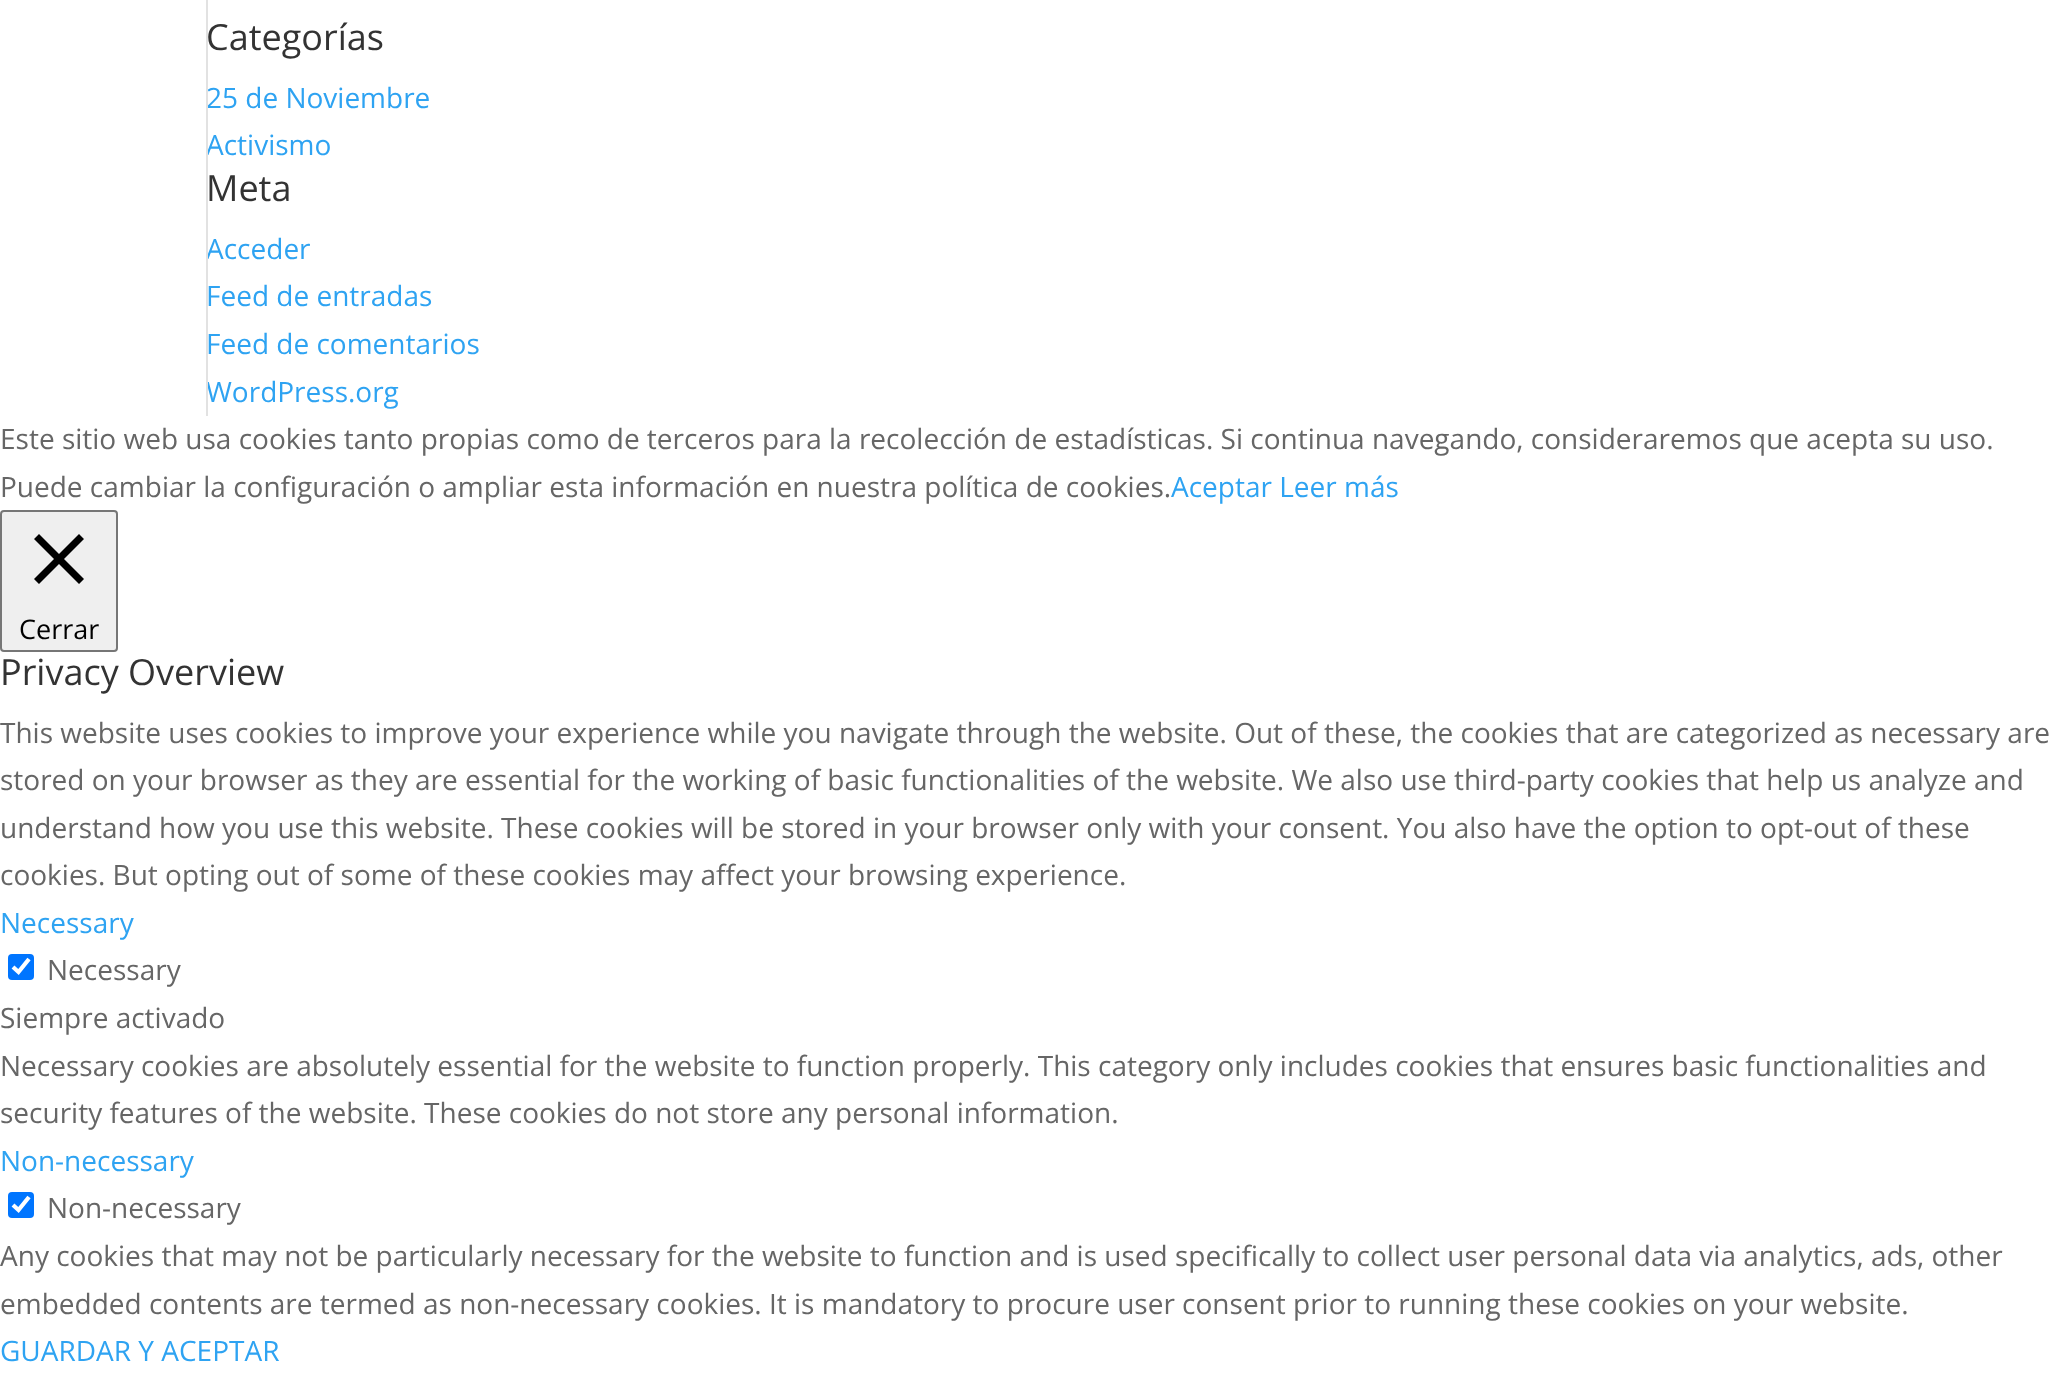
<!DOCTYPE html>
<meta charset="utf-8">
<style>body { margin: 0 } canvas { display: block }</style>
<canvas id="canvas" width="2058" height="1374"></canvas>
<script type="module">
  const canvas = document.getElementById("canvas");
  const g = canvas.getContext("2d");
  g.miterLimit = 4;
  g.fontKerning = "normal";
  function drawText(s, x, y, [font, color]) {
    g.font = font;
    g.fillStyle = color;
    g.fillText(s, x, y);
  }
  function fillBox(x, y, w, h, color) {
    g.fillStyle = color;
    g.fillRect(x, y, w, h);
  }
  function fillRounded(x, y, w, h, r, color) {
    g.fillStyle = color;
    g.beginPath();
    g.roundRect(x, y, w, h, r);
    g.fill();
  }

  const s1 = ["28px Open Sans", "#2EA3F2"];
  const s2 = ["36px Open Sans", "#333333"];
  const s3 = ["28px Open Sans", "#666666"];
  const s4 = ["27px Open Sans", "#000000"];

  fillBox(0, 0, 2058, 1374, "#FFFFFF");
  drawText("25 de Noviembre", 206, 108, s1);
  drawText("Activismo", 206, 155, s1);
  drawText("Acceder", 206, 259, s1);
  drawText("WordPress.org", 206, 402, s1);
  fillBox(206, 0, 2, 416, "#E2E2E2");
  drawText("Categorías", 206, 50, s2);
  drawText("Meta", 206, 201, s2);
  drawText("Feed de entradas", 206, 306, s1);
  drawText("Feed de comentarios", 206, 354, s1);
  drawText("Este sitio web usa cookies tanto propias como de terceros para la recolección de estadísticas. Si continua navegando, consideraremos que acepta su uso.", 0, 449, s3);
  drawText("Puede cambiar la configuración o ampliar esta información en nuestra política de cookies.", 0, 497, s3);
  drawText("Aceptar Leer más", 1171, 497, s1);
  g.fillStyle = "#EFEFEF";
  g.beginPath();
  g.roundRect(1, 511, 116, 140, 3);
  g.fill();
  g.strokeStyle = "#767676";
  g.lineWidth = 2;
  g.stroke();
  g.fillStyle = "#000000";
  g.beginPath();
  g.moveTo(84, 539);
  g.lineTo(79, 534);
  g.lineTo(59, 554);
  g.lineTo(39, 534);
  g.lineTo(34, 539);
  g.lineTo(54, 559);
  g.lineTo(34, 579);
  g.lineTo(39, 584);
  g.lineTo(59, 564);
  g.lineTo(79, 584);
  g.lineTo(84, 579);
  g.lineTo(64, 559);
  g.closePath();
  g.fill();
  drawText("Cerrar", 19, 639, s4);
  drawText("Privacy Overview", 0, 685, s2);
  drawText("This website uses cookies to improve your experience while you navigate through the website. Out of these, the cookies that are categorized as necessary are", 0, 743, s3);
  drawText("stored on your browser as they are essential for the working of basic functionalities of the website. We also use third-party cookies that help us analyze and", 0, 790, s3);
  drawText("understand how you use this website. These cookies will be stored in your browser only with your consent. You also have the option to opt-out of these", 0, 838, s3);
  drawText("cookies. But opting out of some of these cookies may affect your browsing experience.", 0, 885, s3);
  drawText("Necessary", 0, 933, s1);
  fillRounded(8, 954, 26, 26, 4, "#0075FF");
  g.beginPath();
  g.moveTo(13, 967);
  g.lineTo(18.5, 972);
  g.lineTo(29, 959);
  g.strokeStyle = "#FFFFFF";
  g.lineWidth = 4.2;
  g.stroke();
  drawText("Necessary", 47, 980, s3);
  drawText("Siempre activado", 0, 1028, s3);
  drawText("Necessary cookies are absolutely essential for the website to function properly. This category only includes cookies that ensures basic functionalities and", 0, 1076, s3);
  drawText("security features of the website. These cookies do not store any personal information.", 0, 1123, s3);
  drawText("Non-necessary", 0, 1171, s1);
  fillRounded(8, 1192, 26, 26, 4, "#0075FF");
  g.beginPath();
  g.moveTo(13, 1205);
  g.lineTo(18.5, 1210);
  g.lineTo(29, 1197);
  g.stroke();
  drawText("Non-necessary", 47, 1218, s3);
  drawText("Any cookies that may not be particularly necessary for the website to function and is used specifically to collect user personal data via analytics, ads, other", 0, 1266, s3);
  drawText("embedded contents are termed as non-necessary cookies. It is mandatory to procure user consent prior to running these cookies on your website.", 0, 1314, s3);
  drawText("GUARDAR Y ACEPTAR", 0, 1361, s1);
</script>
